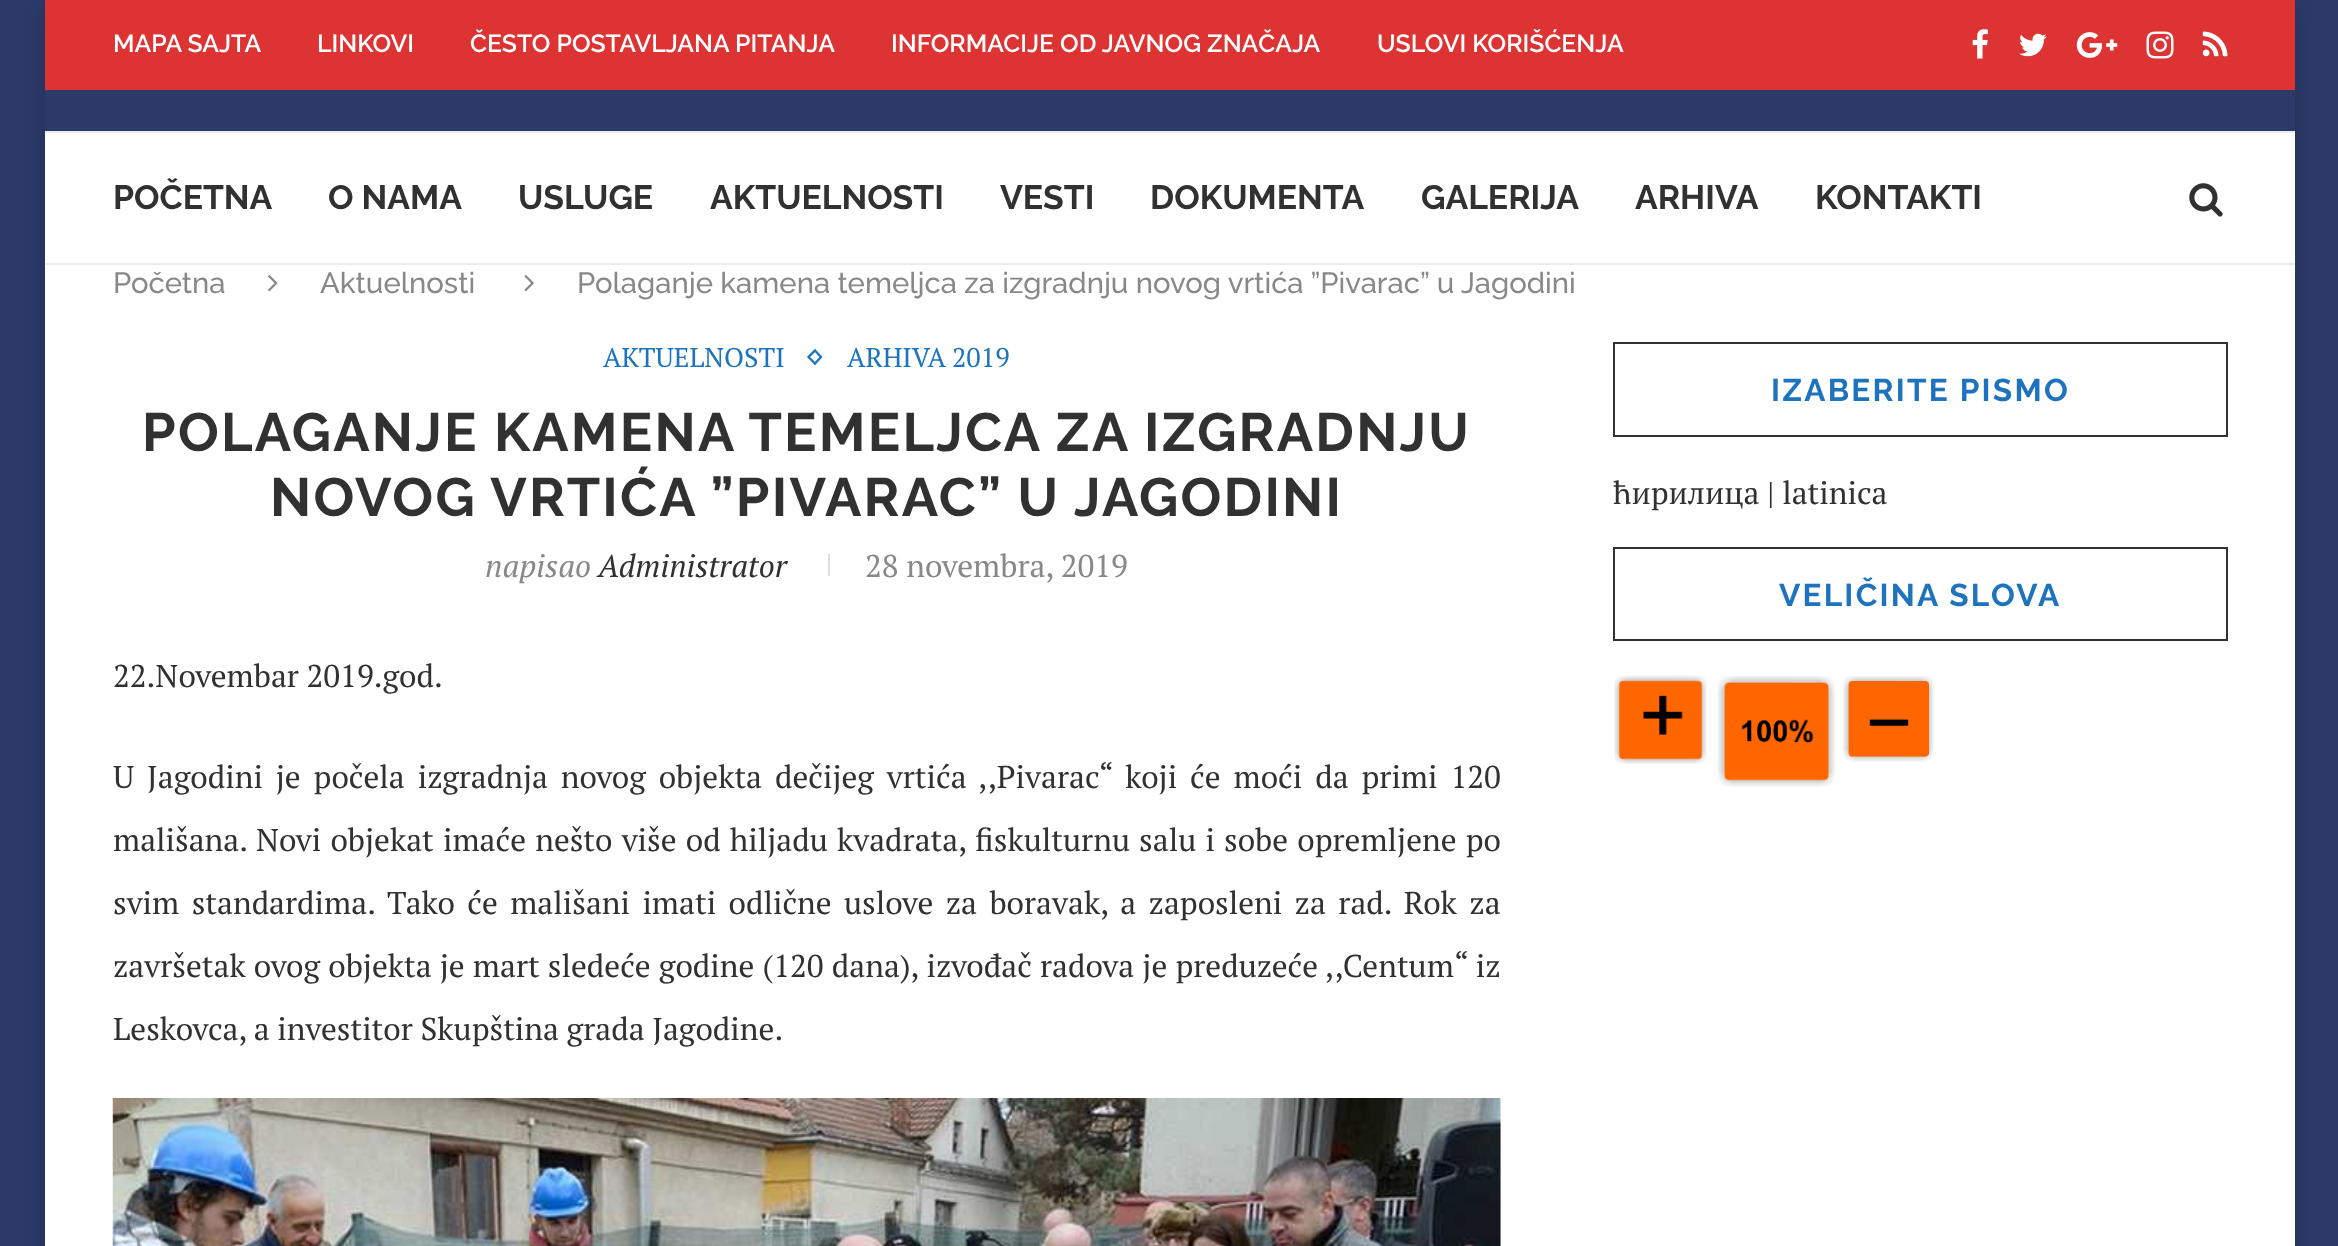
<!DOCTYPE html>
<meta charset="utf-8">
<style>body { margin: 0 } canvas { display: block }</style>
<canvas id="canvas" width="2338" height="1246"></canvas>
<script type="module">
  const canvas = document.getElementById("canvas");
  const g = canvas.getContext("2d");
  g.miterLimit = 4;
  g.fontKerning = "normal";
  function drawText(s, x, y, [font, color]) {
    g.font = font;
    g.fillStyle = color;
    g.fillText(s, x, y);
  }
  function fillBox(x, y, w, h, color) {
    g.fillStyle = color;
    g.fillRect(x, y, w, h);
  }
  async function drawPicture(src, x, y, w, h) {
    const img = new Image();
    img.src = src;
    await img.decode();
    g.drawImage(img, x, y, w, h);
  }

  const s1 = ["600 24.75px Raleway", "#FFFFFF"];
  const s2 = ["bold 33.75px Raleway", "#313131"];
  const s3 = ["500 29.25px Raleway", "#888888"];
  const s4 = ["27px PT Serif", "#1E73BE"];
  const s5 = ["bold 54px Raleway", "#313131"];
  const s6 = ["italic 31.5px PT Serif", "#888888"];
  const s7 = ["italic 31.5px PT Serif", "#313131"];
  const s8 = ["31.5px PT Serif", "#888888"];
  const s9 = ["31.5px PT Serif", "#313131"];
  const s10 = ["bold 31.5px Raleway", "#1E73BE"];

  fillBox(0, 0, 2338, 1246, "#2C3A69");
  g.fillStyle = "rgba(0, 0, 0, 0.2)";
  g.filter = "blur(9px)";
  g.beginPath();
  g.rect(45, 11, 2250, 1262);
  g.fill();
  g.filter = "none";
  fillBox(45, 133, 2250, 1113, "#FFFFFF");
  fillBox(45, 0, 2250, 90, "#DD3333");
  drawText("MAPA SAJTA", 113, 52, s1);
  drawText("LINKOVI", 317, 52, s1);
  drawText("ČESTO POSTAVLJANA PITANJA", 470, 52, s1);
  drawText("INFORMACIJE OD JAVNOG ZNAČAJA", 891, 52, s1);
  drawText("USLOVI KORIŠĆENJA", 1377, 52, s1);
  await drawPicture("pic1.png", 1972, 29, 16, 30);
  await drawPicture("pic2.png", 2019, 33, 28, 24);
  await drawPicture("pic3.png", 2076, 32, 42, 26);
  await drawPicture("pic4.png", 2146, 31, 28, 28);
  await drawPicture("pic5.png", 2202, 31, 26, 26);
  fillBox(45, 90, 2250, 41, "#2C3A69");
  fillBox(45, 131, 2250, 2, "#ECECEC");
  fillBox(45, 263, 2250, 2, "#ECECEC");
  drawText("POČETNA", 113, 209, s2);
  drawText("O NAMA", 328, 209, s2);
  drawText("USLUGE", 518, 209, s2);
  drawText("AKTUELNOSTI", 710, 209, s2);
  drawText("VESTI", 1000, 209, s2);
  drawText("DOKUMENTA", 1150, 209, s2);
  drawText("GALERIJA", 1421, 209, s2);
  drawText("ARHIVA", 1635, 209, s2);
  drawText("KONTAKTI", 1815, 209, s2);
  await drawPicture("pic6.png", 2189, 183, 34, 34);
  drawText("Početna", 113, 293, s3);
  await drawPicture("pic7.png", 268, 275, 10, 17);
  drawText("Aktuelnosti", 320, 293, s3);
  await drawPicture("pic8.png", 524, 275, 10, 17);
  drawText("Polaganje kamena temeljca za izgradnju novog vrtića ”Pivarac” u Jagodini", 577, 293, s3);
  drawText("AKTUELNOSTI", 603, 367, s4);
  g.beginPath();
  g.moveTo(815, 350.5);
  g.lineTo(821, 357);
  g.lineTo(815, 363.5);
  g.lineTo(808.5, 357);
  g.closePath();
  g.strokeStyle = "#1E73BE";
  g.lineWidth = 2.3;
  g.stroke();
  drawText("ARHIVA 2019", 847, 367, s4);
  g.letterSpacing = "2.25px";
  drawText("POLAGANJE KAMENA TEMELJCA ZA IZGRADNJU", 142, 451, s5);
  drawText("NOVOG VRTIĆA ”PIVARAC” U JAGODINI", 270, 516, s5);
  g.letterSpacing = "0px";
  drawText("napisao", 485, 577, s6);
  drawText("Administrator", 598, 577, s7);
  fillBox(828, 554, 2, 22, "#DEDEDE");
  drawText("28 novembra, 2019", 865, 577, s8);
  drawText("22.Novembar 2019.god.", 113, 687, s9);
  g.wordSpacing = "5.25px";
  drawText("U Jagodini je počela izgradnja novog objekta dečijeg vrtića ,,Pivarac“ koji će moći da primi 120", 113, 788, s9);
  g.wordSpacing = "1.5px";
  drawText("mališana. Novi objekat imaće nešto više od hiljadu kvadrata, fiskulturnu salu i sobe opremljene po", 113, 851, s9);
  g.wordSpacing = "4.75px";
  drawText("svim standardima. Tako će mališani imati odlične uslove za boravak, a zaposleni za rad. Rok za", 113, 914, s9);
  g.wordSpacing = "0.5px";
  drawText("završetak ovog objekta je mart sledeće godine (120 dana), izvođač radova je preduzeće ,,Centum“ iz", 113, 977, s9);
  g.wordSpacing = "0px";
  drawText("Leskovca, a investitor Skupština grada Jagodine.", 113, 1040, s9);
  await drawPicture("pic9.png", 112, 1098, 1389, 148);
  g.strokeStyle = "#313131";
  g.lineWidth = 2;
  g.strokeRect(1614, 343, 613, 93);
  g.letterSpacing = "2.25px";
  drawText("IZABERITE PISMO", 1771, 401, s10);
  g.letterSpacing = "0px";
  drawText("ћирилица | latinica", 1613, 504, s9);
  g.strokeRect(1614, 548, 613, 92);
  g.letterSpacing = "2.25px";
  drawText("VELIČINA SLOVA", 1779, 606, s10);
  await drawPicture("pic10.png", 1614, 675, 93, 89);
  await drawPicture("pic11.png", 1717, 676, 119, 111);
  await drawPicture("pic12.png", 1843, 676, 91, 86);
</script>
